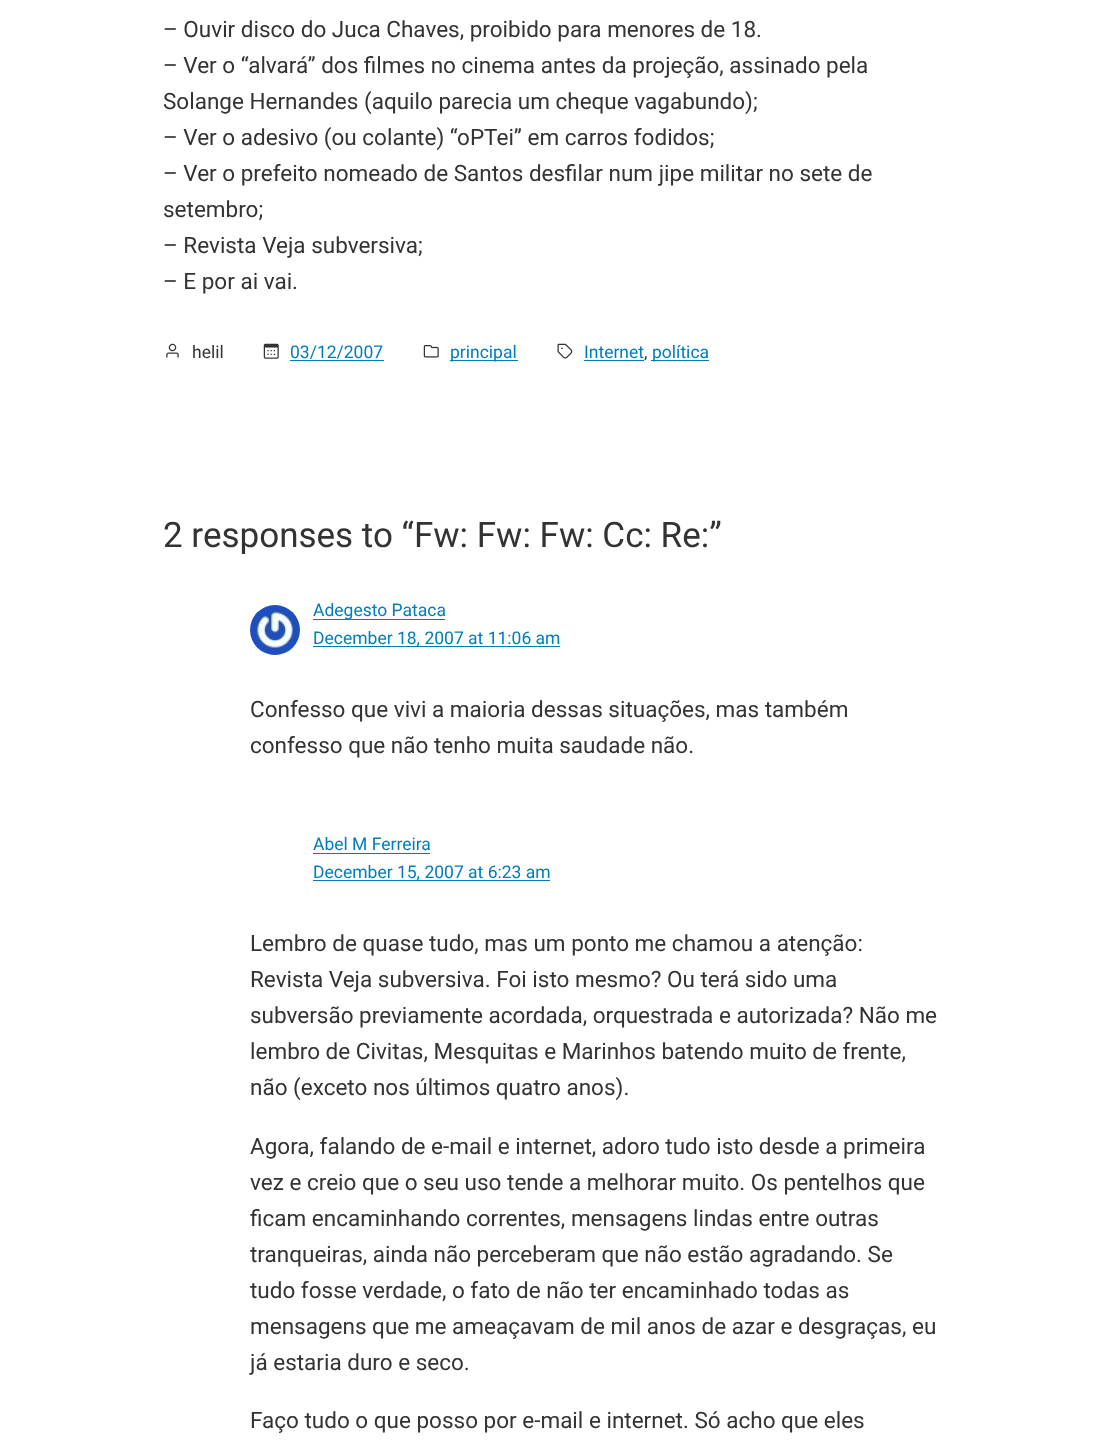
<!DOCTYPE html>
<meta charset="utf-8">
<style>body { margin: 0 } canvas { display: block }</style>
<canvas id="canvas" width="1100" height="1440"></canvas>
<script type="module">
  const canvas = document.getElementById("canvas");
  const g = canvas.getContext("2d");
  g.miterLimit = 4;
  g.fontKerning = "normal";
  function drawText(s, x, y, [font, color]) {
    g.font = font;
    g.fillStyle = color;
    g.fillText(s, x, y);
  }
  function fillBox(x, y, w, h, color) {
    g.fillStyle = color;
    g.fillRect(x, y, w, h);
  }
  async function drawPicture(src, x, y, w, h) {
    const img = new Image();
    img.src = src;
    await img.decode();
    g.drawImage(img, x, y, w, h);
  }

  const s1 = ["22.5px Roboto", "#333333"];
  const s2 = ["17.5px Roboto", "#333333"];
  const s3 = ["17.5px Roboto", "#007CBA"];
  const s4 = ["35px Roboto", "#333333"];

  fillBox(0, 0, 1100, 1440, "#FFFFFF");
  drawText("– Ouvir disco do Juca Chaves, proibido para menores de 18.", 163, 37, s1);
  drawText("– Ver o “alvará” dos filmes no cinema antes da projeção, assinado pela", 163, 73, s1);
  drawText("Solange Hernandes (aquilo parecia um cheque vagabundo);", 163, 109, s1);
  drawText("– Ver o adesivo (ou colante) “oPTei” em carros fodidos;", 163, 145, s1);
  drawText("– Ver o prefeito nomeado de Santos desfilar num jipe militar no sete de", 163, 181, s1);
  drawText("setembro;", 163, 217, s1);
  drawText("– Revista Veja subversiva;", 163, 253, s1);
  drawText("– E por ai vai.", 163, 289, s1);
  await drawPicture("pic1.png", 166, 343, 13, 15);
  drawText("helil", 192, 358, s2);
  await drawPicture("pic2.png", 263, 343, 16, 16);
  drawText("03/12/2007", 290, 358, s3);
  fillBox(290, 360, 94, 1, "#007CBA");
  await drawPicture("pic3.png", 423, 345, 16, 13);
  fillBox(450, 360, 68, 1, "#007CBA");
  drawText("principal", 450, 358, s3);
  await drawPicture("pic4.png", 557, 343, 16, 16);
  drawText("Internet", 584, 358, s3);
  fillBox(584, 360, 60, 1, "#007CBA");
  drawText(",", 644, 358, s2);
  fillBox(651, 360, 58, 1, "#007CBA");
  drawText("política", 652, 358, s3);
  drawText("2 responses to “Fw: Fw: Fw: Cc: Re:”", 163, 547, s4);
  await drawPicture("pic5.png", 250, 605, 50, 50);
  fillBox(313, 619, 132, 1, "#007CBA");
  drawText("Adegesto Pataca", 313, 616, s3);
  fillBox(313, 646, 247, 1, "#007CBA");
  drawText("December 18, 2007 at 11:06 am", 313, 644, s3);
  drawText("Confesso que vivi a maioria dessas situações, mas também", 250, 717, s1);
  drawText("confesso que não tenho muita saudade não.", 250, 753, s1);
  drawText("Abel M Ferreira", 313, 850, s3);
  fillBox(313, 853, 117, 1, "#007CBA");
  fillBox(313, 880, 237, 1, "#007CBA");
  drawText("December 15, 2007 at 6:23 am", 313, 878, s3);
  drawText("Lembro de quase tudo, mas um ponto me chamou a atenção:", 250, 951, s1);
  drawText("Revista Veja subversiva. Foi isto mesmo? Ou terá sido uma", 250, 987, s1);
  drawText("subversão previamente acordada, orquestrada e autorizada? Não me", 250, 1023, s1);
  drawText("lembro de Civitas, Mesquitas e Marinhos batendo muito de frente,", 250, 1059, s1);
  drawText("não (exceto nos últimos quatro anos).", 250, 1095, s1);
  drawText("Agora, falando de e-mail e internet, adoro tudo isto desde a primeira", 250, 1154, s1);
  drawText("vez e creio que o seu uso tende a melhorar muito. Os pentelhos que", 250, 1190, s1);
  drawText("ficam encaminhando correntes, mensagens lindas entre outras", 250, 1226, s1);
  drawText("tranqueiras, ainda não perceberam que não estão agradando. Se", 250, 1262, s1);
  drawText("tudo fosse verdade, o fato de não ter encaminhado todas as", 250, 1298, s1);
  drawText("mensagens que me ameaçavam de mil anos de azar e desgraças, eu", 250, 1334, s1);
  drawText("já estaria duro e seco.", 250, 1370, s1);
  drawText("Faço tudo o que posso por e-mail e internet. Só acho que eles", 250, 1428, s1);
</script>
